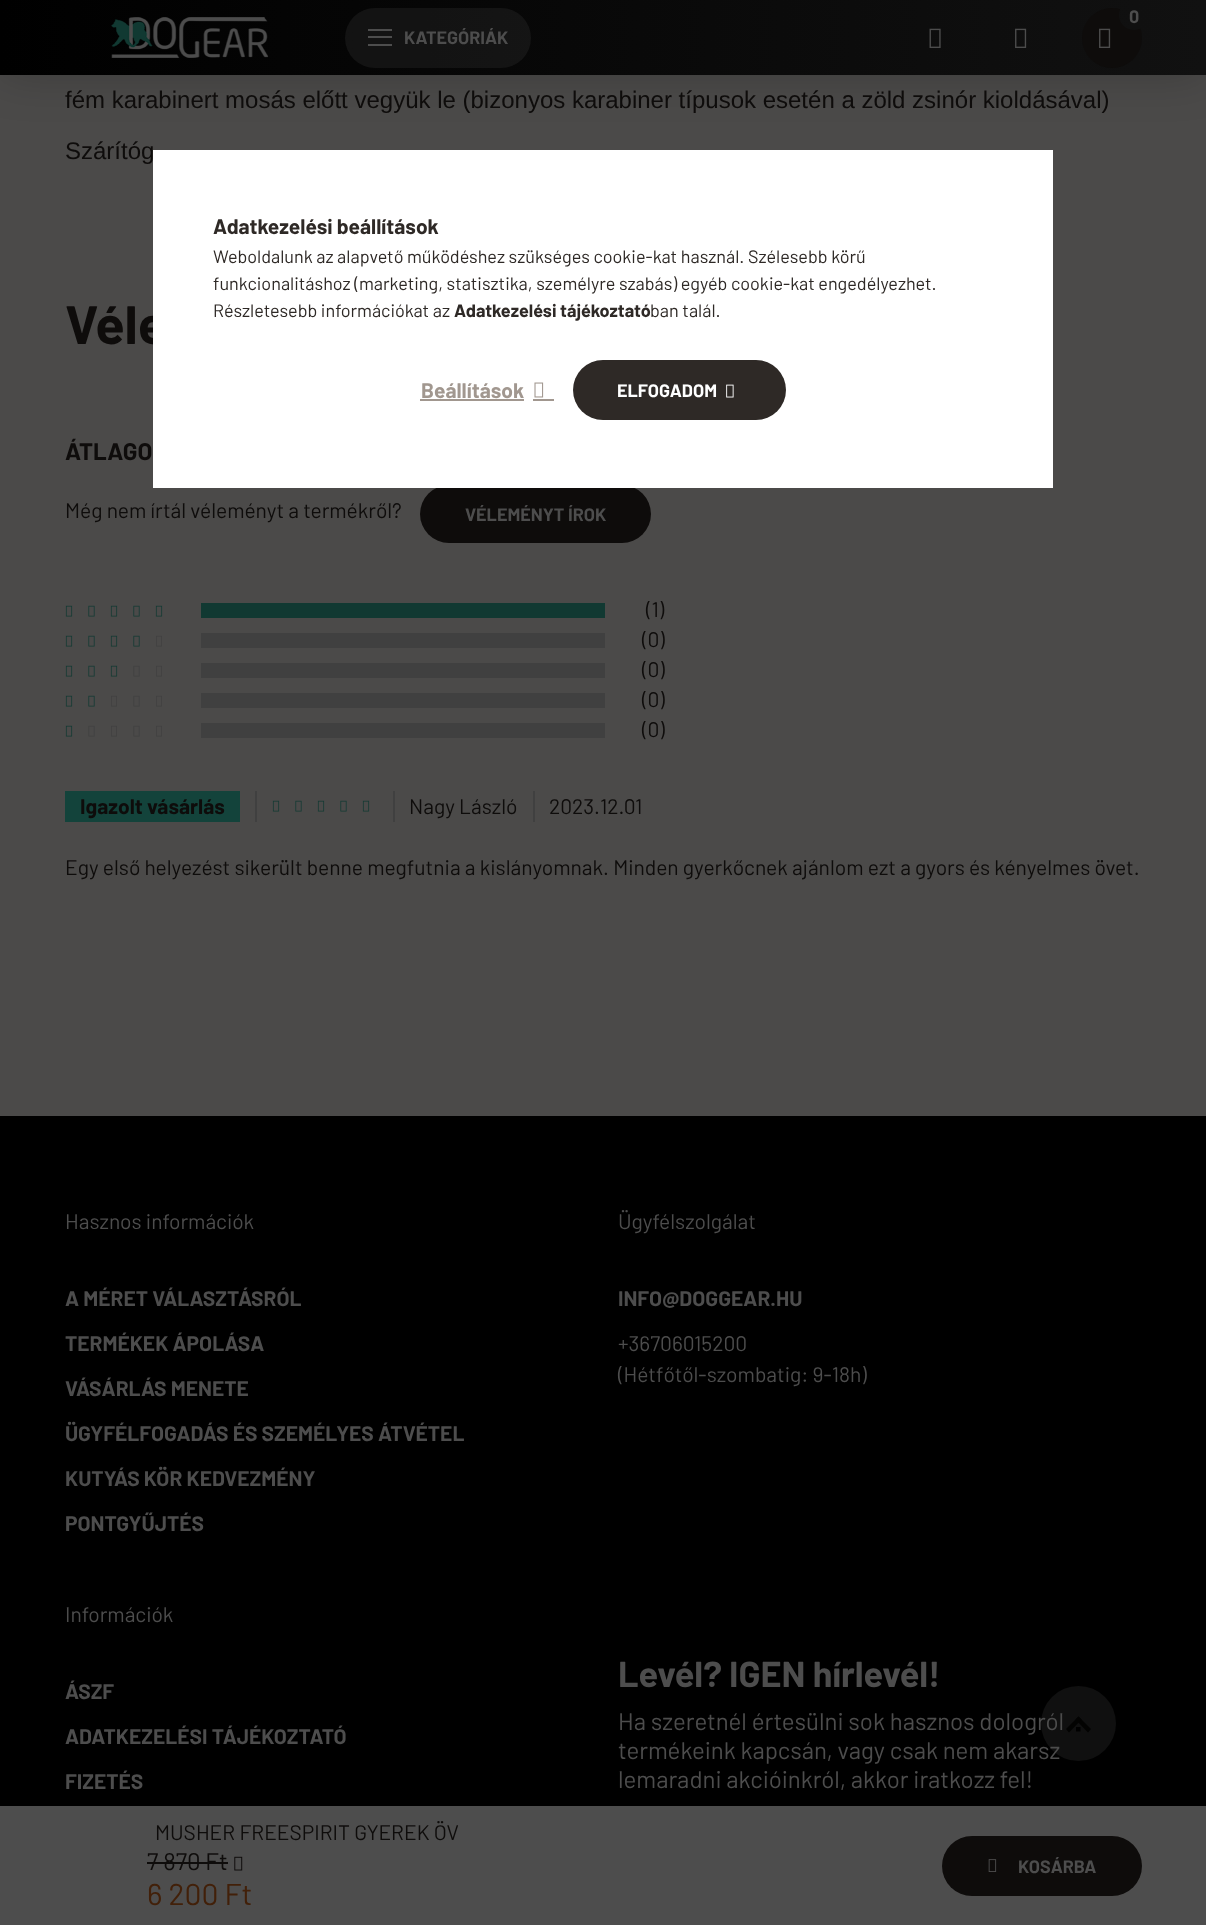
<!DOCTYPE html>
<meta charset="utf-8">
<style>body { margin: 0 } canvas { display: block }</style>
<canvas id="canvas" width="1206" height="1925"></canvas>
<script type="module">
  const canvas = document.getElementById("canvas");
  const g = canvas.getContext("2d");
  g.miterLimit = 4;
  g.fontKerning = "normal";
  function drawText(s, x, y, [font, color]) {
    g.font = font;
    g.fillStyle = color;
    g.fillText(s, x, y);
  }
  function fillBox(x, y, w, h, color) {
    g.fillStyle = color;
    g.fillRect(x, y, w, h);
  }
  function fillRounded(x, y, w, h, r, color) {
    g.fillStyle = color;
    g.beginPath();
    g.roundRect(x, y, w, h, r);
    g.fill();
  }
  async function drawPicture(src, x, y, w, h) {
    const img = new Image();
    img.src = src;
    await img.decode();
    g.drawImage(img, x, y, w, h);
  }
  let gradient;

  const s1 = ["bold 18px Barlow", "#4D4D4D"];
  const s2 = ["24px Liberation Sans", "#0E0C0B"];
  const s3 = ["bold 54px Barlow", "#0E0C0B"];
  const s4 = ["bold 24px Barlow", "#0E0C0B"];
  const s5 = ["21px Barlow", "#0E0C0B"];
  const s6 = ["bold 21px Barlow", "#0E0C0B"];
  const s7 = ["24px Barlow", "#4D4D4D"];
  const s8 = ["24px Barlow", "#0E0C0B"];
  const s9 = ["30px Barlow", "#422009"];
  const s10 = ["21px Barlow", "#4D4D4D"];
  const s11 = ["bold 21px Barlow", "#4D4D4D"];
  const s12 = ["bold 36px Barlow", "#4D4D4D"];
  const s13 = ["bold 21px Barlow", "#2E2926"];
  const s14 = ["18px Barlow", "#2E2926"];
  const s15 = ["bold 18px Barlow", "#2E2926"];
  const s16 = ["bold 21px Barlow", "#A1978F"];
  const s17 = ["bold 18px Barlow", "#FFFFFF"];

  fillBox(0, 0, 1206, 1925, "#4B4A49");
  g.fillStyle = "rgba(0, 0, 0, 0.2)";
  g.filter = "blur(22.5px)";
  g.beginPath();
  g.rect(0, 0, 1206, 75);
  g.fill();
  g.filter = "none";
  gradient = g.createLinearGradient(0, 963, 1206, 963);
  gradient.addColorStop(0, "#000000");
  gradient.addColorStop(1, "#111111");
  g.fillStyle = gradient;
  g.fillRect(0, 0, 1206, 75);
  g.fillStyle = "#0E0C0B";
  g.beginPath();
  g.arc(1112, 38, 30, 0, Math.PI * 2);
  g.fill();
  gradient = g.createLinearGradient(0, 963, 1206, 963);
  gradient.addColorStop(0, "#000000");
  gradient.addColorStop(1, "#111111");
  g.fillStyle = gradient;
  g.beginPath();
  g.arc(1134, 15, 15, 0, Math.PI * 2);
  g.fill();
  drawText("0", 1129, 23, s1);
  await drawPicture("pic1.png", 1099, 28, 12, 20);
  await drawPicture("pic2.png", 929, 28, 12, 20);
  await drawPicture("pic3.png", 1015, 28, 12, 20);
  await drawPicture("pic4.png", 111, 17, 158, 41);
  fillRounded(345, 8, 186, 60, 30, "rgba(77, 77, 77, 0.2)");
  fillBox(368, 29, 24, 2, "#4D4D4D");
  fillBox(368, 36, 24, 2, "#4D4D4D");
  fillBox(368, 44, 24, 2, "#4D4D4D");
  drawText("KATEGÓRIÁK", 404, 44, s1);
  drawText("fém karabinert mosás előtt vegyük le (bizonyos karabiner típusok esetén a zöld zsinór kioldásával)", 65, 108, s2);
  drawText("Szárítóg", 65, 159, s2);
  drawText("Véle", 65, 344, s3);
  drawText("ÁTLAGO", 65, 460, s4);
  drawText("Még nem írtál véleményt a termékről?", 65, 518, s5);
  gradient = g.createLinearGradient(420, 514, 1113, 514);
  gradient.addColorStop(0.33, "#0E0C0B");
  gradient.addColorStop(0.67, "#302D2B");
  g.fillStyle = gradient;
  g.beginPath();
  g.roundRect(420, 485, 231, 58, 29);
  g.fill();
  drawText("VÉLEMÉNYT ÍROK", 465, 521, s1);
  await drawPicture("pic5.png", 65, 605, 8, 12);
  await drawPicture("pic6.png", 88, 605, 7, 12);
  await drawPicture("pic5.png", 110, 605, 8, 12);
  await drawPicture("pic6.png", 133, 605, 7, 12);
  await drawPicture("pic5.png", 155, 605, 8, 12);
  fillBox(201, 603, 404, 15, "#113932");
  drawText("(1)", 646, 617, s5);
  await drawPicture("pic5.png", 65, 635, 8, 12);
  await drawPicture("pic6.png", 88, 635, 7, 12);
  await drawPicture("pic5.png", 110, 635, 8, 12);
  await drawPicture("pic6.png", 133, 635, 7, 12);
  await drawPicture("pic7.png", 156, 635, 6, 12);
  fillBox(201, 633, 404, 15, "#404040");
  drawText("(0)", 642, 647, s5);
  await drawPicture("pic5.png", 65, 665, 8, 12);
  await drawPicture("pic6.png", 88, 665, 7, 12);
  await drawPicture("pic5.png", 110, 665, 8, 12);
  await drawPicture("pic8.png", 133, 665, 7, 12);
  await drawPicture("pic7.png", 156, 665, 6, 12);
  fillBox(201, 663, 404, 15, "#404040");
  drawText("(0)", 642, 677, s5);
  await drawPicture("pic5.png", 65, 695, 8, 12);
  await drawPicture("pic6.png", 88, 695, 7, 12);
  await drawPicture("pic7.png", 111, 695, 6, 12);
  await drawPicture("pic8.png", 133, 695, 7, 12);
  await drawPicture("pic7.png", 156, 695, 6, 12);
  fillBox(201, 693, 404, 15, "#404040");
  drawText("(0)", 642, 707, s5);
  await drawPicture("pic5.png", 65, 725, 8, 12);
  await drawPicture("pic8.png", 88, 725, 7, 12);
  await drawPicture("pic7.png", 111, 725, 6, 12);
  await drawPicture("pic8.png", 133, 725, 7, 12);
  await drawPicture("pic7.png", 156, 725, 6, 12);
  fillBox(201, 723, 404, 15, "#404040");
  drawText("(0)", 642, 737, s5);
  fillBox(255, 791, 2, 31, "#404040");
  fillBox(65, 791, 175, 31, "#13433B");
  drawText("Igazolt vásárlás", 80, 814, s6);
  await drawPicture("pic5.png", 272, 800, 8, 12);
  await drawPicture("pic6.png", 295, 800, 7, 12);
  await drawPicture("pic5.png", 317, 800, 8, 12);
  await drawPicture("pic6.png", 340, 800, 7, 12);
  await drawPicture("pic5.png", 362, 800, 8, 12);
  fillBox(393, 791, 2, 31, "#404040");
  drawText("Nagy László", 409, 814, s5);
  fillBox(533, 791, 2, 31, "#404040");
  drawText("2023.12.01", 549, 814, s5);
  drawText("Egy első helyezést sikerült benne megfutnia a kislányomnak. Minden gyerkőcnek ajánlom ezt a gyors és kényelmes övet.", 65, 875, s5);
  fillBox(0, 1116, 1206, 690, "#000000");
  drawText("Ha szeretnél értesülni sok hasznos dologról", 618, 1730, s7);
  drawText("termékeink kapcsán, vagy csak nem akarsz", 618, 1759, s7);
  g.fillStyle = "rgba(77, 77, 77, 0.21)";
  g.beginPath();
  g.arc(1078.5, 1723.5, 37.5, 0, Math.PI * 2);
  g.fill();
  g.fillStyle = "rgba(0, 0, 0, 0.18)";
  g.filter = "blur(22.5px)";
  g.beginPath();
  g.rect(0, 1821, 1206, 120);
  g.fill();
  g.filter = "none";
  fillBox(0, 1806, 1206, 119, "#4D4D4D");
  drawText("MUSHER FREESPIRIT GYEREK ÖV", 155, 1840, s5);
  drawText("7 870 Ft", 147, 1870, s8);
  fillBox(147, 1862, 81, 2, "#0E0C0B");
  await drawPicture("pic9.png", 234, 1856, 9, 15);
  drawText("6 200 Ft", 147, 1905, s9);
  gradient = g.createLinearGradient(942, 1866, 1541, 1866);
  gradient.addColorStop(0.33, "#0E0C0B");
  gradient.addColorStop(0.67, "#302D2B");
  g.fillStyle = gradient;
  g.beginPath();
  g.roundRect(942, 1836, 200, 60, 30);
  g.fill();
  await drawPicture("pic10.png", 988, 1859, 9, 13);
  drawText("KOSÁRBA", 1018, 1873, s1);
  drawText("Hasznos információk", 65, 1229, s10);
  drawText("A MÉRET VÁLASZTÁSRÓL", 65, 1306, s11);
  drawText("TERMÉKEK ÁPOLÁSA", 65, 1351, s11);
  drawText("VÁSÁRLÁS MENETE", 65, 1396, s11);
  drawText("ÜGYFÉLFOGADÁS ÉS SZEMÉLYES ÁTVÉTEL", 65, 1441, s11);
  drawText("KUTYÁS KÖR KEDVEZMÉNY", 65, 1486, s11);
  drawText("PONTGYŰJTÉS", 65, 1531, s11);
  drawText("Ügyfélszolgálat", 618, 1229, s10);
  drawText("INFO@DOGGEAR.HU", 618, 1306, s11);
  drawText("+36706015200", 618, 1351, s10);
  drawText("(Hétfőtől-szombatig: 9-18h)", 618, 1382, s10);
  drawText("Információk", 65, 1622, s10);
  drawText("ÁSZF", 65, 1699, s11);
  drawText("ADATKEZELÉSI TÁJÉKOZTATÓ", 65, 1744, s11);
  drawText("FIZETÉS", 65, 1789, s11);
  drawText("Levél? IGEN hírlevél!", 618, 1687, s12);
  drawText("lemaradni akcióinkról, akkor iratkozz fel!", 618, 1788, s7);
  fillBox(153, 150, 900, 338, "#FFFFFF");
  drawText("Adatkezelési beállítások", 213, 234, s13);
  drawText("Weboldalunk az alapvető működéshez szükséges cookie-kat használ. Szélesebb körű", 213, 263, s14);
  drawText("funkcionalitáshoz (marketing, statisztika, személyre szabás) egyéb cookie-kat engedélyezhet.", 213, 290, s14);
  drawText("Részletesebb információkat az", 213, 317, s14);
  drawText("Adatkezelési tájékoztató", 454, 317, s15);
  drawText("ban talál.", 650, 317, s14);
  drawText("Beállítások", 421, 398, s16);
  fillBox(420, 399, 104, 2, "#A1978F");
  await drawPicture("pic11.png", 534, 382, 10, 16);
  fillBox(533, 399, 21, 2, "#A1978F");
  gradient = g.createLinearGradient(573, 390, 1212, 390);
  gradient.addColorStop(0.33, "#2E2926");
  gradient.addColorStop(0.67, "#A1978F");
  g.fillStyle = gradient;
  g.beginPath();
  g.roundRect(573, 360, 213, 60, 30);
  g.fill();
  drawText("ELFOGADOM", 617, 397, s17);
  await drawPicture("pic12.png", 726, 384, 8, 14);
  g.fillStyle = "#030302";
  g.beginPath();
  g.moveTo(1088, 1732.5);
  g.lineTo(1075.5, 1719.5);
  g.lineTo(1078.5, 1716.5);
  g.lineTo(1091, 1729);
  g.closePath();
  g.fill();
  g.fillStyle = "#000000";
  g.beginPath();
  g.moveTo(1076, 1731.5);
  g.lineTo(1076, 1727);
  g.lineTo(1080.5, 1727);
  g.lineTo(1080.5, 1731.5);
  g.closePath();
  g.fill();
  g.fillStyle = "#030302";
  g.beginPath();
  g.moveTo(1066, 1729);
  g.lineTo(1078.5, 1716.5);
  g.lineTo(1081.5, 1719.5);
  g.lineTo(1069, 1732.5);
  g.closePath();
  g.fill();
</script>
